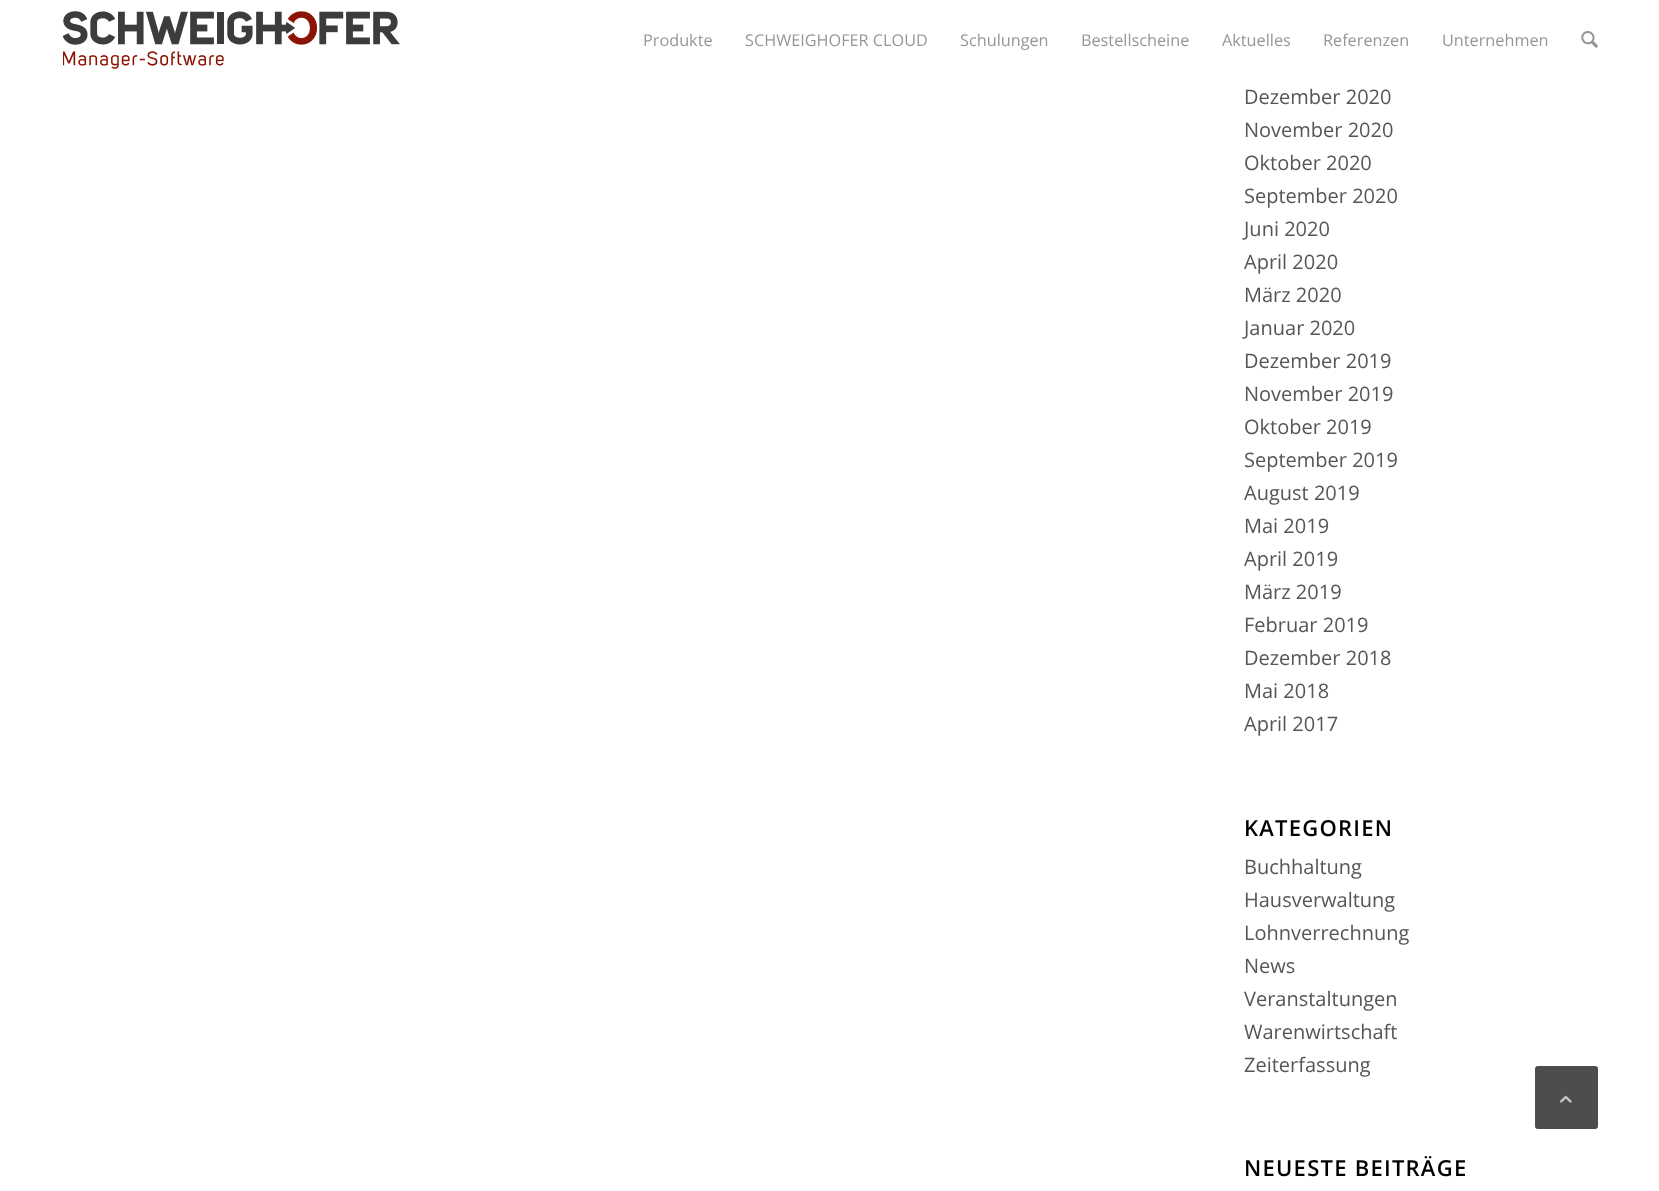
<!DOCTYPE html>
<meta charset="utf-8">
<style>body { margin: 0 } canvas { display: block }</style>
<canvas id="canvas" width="1659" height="1191"></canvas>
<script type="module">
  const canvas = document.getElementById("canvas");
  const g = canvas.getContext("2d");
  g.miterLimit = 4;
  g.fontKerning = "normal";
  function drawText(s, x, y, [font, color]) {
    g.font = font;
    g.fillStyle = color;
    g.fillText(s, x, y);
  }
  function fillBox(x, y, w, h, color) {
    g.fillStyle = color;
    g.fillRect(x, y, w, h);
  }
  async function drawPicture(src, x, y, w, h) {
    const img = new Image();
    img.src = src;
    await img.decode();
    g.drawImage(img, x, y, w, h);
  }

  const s1 = ["16.25px 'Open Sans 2'", "#969696"];
  const s2 = ["20px Open Sans", "#565656"];
  const s3 = ["600 22px Open Sans", "#000000"];

  fillBox(0, 0, 1659, 1191, "#FFFFFF");
  await drawPicture("pic1.png", 63, 11, 337, 58);
  drawText("Produkte", 643, 46, s1);
  drawText("SCHWEIGHOFER CLOUD", 745, 46, s1);
  drawText("Schulungen", 960, 46, s1);
  drawText("Bestellscheine", 1081, 46, s1);
  drawText("Aktuelles", 1222, 46, s1);
  drawText("Referenzen", 1323, 46, s1);
  drawText("Unternehmen", 1442, 46, s1);
  await drawPicture("pic2.png", 1581, 31, 17, 17);
  drawText("Dezember 2020", 1244, 104, s2);
  drawText("November 2020", 1244, 137, s2);
  drawText("Oktober 2020", 1244, 170, s2);
  drawText("September 2020", 1244, 203, s2);
  drawText("Juni 2020", 1244, 236, s2);
  drawText("April 2020", 1244, 269, s2);
  drawText("März 2020", 1244, 302, s2);
  drawText("Januar 2020", 1244, 335, s2);
  drawText("Dezember 2019", 1244, 368, s2);
  drawText("November 2019", 1244, 401, s2);
  drawText("Oktober 2019", 1244, 434, s2);
  drawText("September 2019", 1244, 467, s2);
  drawText("August 2019", 1244, 500, s2);
  drawText("Mai 2019", 1244, 533, s2);
  drawText("April 2019", 1244, 566, s2);
  drawText("März 2019", 1244, 599, s2);
  drawText("Februar 2019", 1244, 632, s2);
  drawText("Dezember 2018", 1244, 665, s2);
  drawText("Mai 2018", 1244, 698, s2);
  drawText("April 2017", 1244, 731, s2);
  g.letterSpacing = "1.25px";
  drawText("KATEGORIEN", 1244, 836, s3);
  g.letterSpacing = "0px";
  drawText("Buchhaltung", 1244, 874, s2);
  drawText("Hausverwaltung", 1244, 907, s2);
  drawText("Lohnverrechnung", 1244, 940, s2);
  drawText("News", 1244, 973, s2);
  drawText("Veranstaltungen", 1244, 1006, s2);
  drawText("Warenwirtschaft", 1244, 1039, s2);
  drawText("Zeiterfassung", 1244, 1072, s2);
  g.letterSpacing = "1.25px";
  drawText("NEUESTE BEITRÄGE", 1244, 1176, s3);
  g.fillStyle = "#4D4D4D";
  g.beginPath();
  g.roundRect(1535.5, 1066.5, 62, 62, 2);
  g.fill();
  g.strokeStyle = "#4D4D4D";
  g.stroke();
  await drawPicture("pic3.png", 1560, 1095, 12, 8);
</script>
